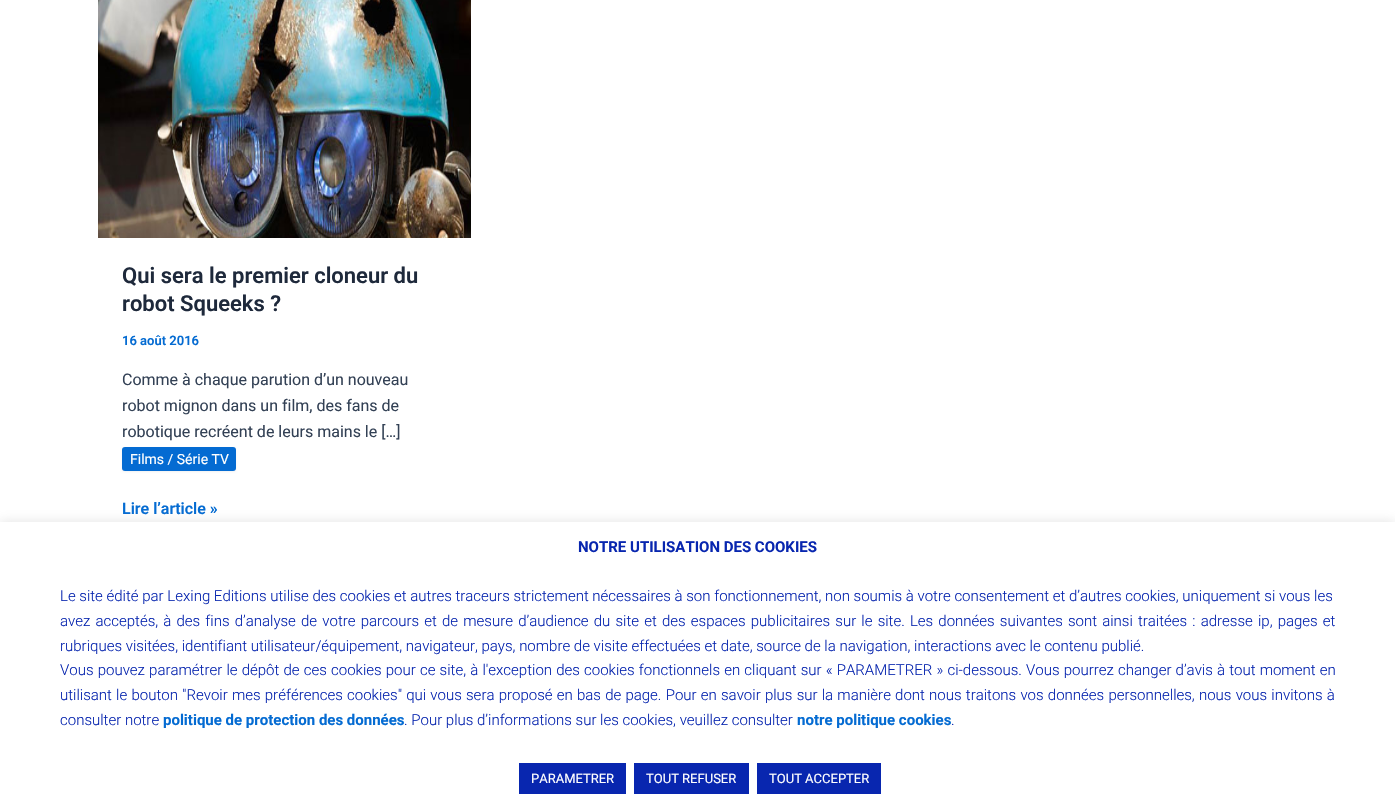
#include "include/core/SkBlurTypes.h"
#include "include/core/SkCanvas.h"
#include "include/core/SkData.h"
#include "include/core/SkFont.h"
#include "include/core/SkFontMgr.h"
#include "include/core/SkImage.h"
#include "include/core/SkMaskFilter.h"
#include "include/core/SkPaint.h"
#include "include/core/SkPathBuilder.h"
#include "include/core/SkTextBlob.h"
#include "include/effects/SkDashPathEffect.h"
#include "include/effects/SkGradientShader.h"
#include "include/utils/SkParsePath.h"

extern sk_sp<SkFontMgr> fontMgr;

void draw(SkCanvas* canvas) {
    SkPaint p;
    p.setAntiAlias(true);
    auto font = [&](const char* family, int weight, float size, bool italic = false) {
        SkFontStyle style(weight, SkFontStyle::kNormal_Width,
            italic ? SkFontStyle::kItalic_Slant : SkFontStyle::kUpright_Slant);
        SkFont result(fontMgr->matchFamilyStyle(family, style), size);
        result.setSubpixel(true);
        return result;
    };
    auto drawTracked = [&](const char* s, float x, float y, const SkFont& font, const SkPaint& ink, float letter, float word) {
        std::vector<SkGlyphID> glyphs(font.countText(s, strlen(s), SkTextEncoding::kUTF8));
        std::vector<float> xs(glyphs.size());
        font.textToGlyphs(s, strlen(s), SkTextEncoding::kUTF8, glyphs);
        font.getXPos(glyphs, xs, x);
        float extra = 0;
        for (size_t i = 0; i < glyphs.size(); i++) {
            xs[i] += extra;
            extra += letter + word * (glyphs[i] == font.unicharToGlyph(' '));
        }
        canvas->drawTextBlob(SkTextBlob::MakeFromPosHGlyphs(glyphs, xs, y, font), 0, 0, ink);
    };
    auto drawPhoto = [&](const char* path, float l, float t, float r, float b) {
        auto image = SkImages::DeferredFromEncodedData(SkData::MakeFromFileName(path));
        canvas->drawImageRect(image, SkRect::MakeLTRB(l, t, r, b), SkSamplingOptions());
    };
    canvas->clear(0xFFFFFFFF);
    drawPhoto("media/1.png", 98, 0, 471, 238);
    auto font1 = font("Roboto", 600, 22);
    p.setColor(0xFF1E293B);
    canvas->drawString("Qui sera le premier cloneur du", 122, 283, font1, p);
    canvas->drawString("robot Squeeks ?", 122, 311, font1, p);
    auto font2 = font("Roboto", 600, 13);
    p.setColor(0xFF046BD2);
    canvas->drawString("16 août 2016", 122, 345, font2, p);
    auto font3 = font("Roboto", 400, 16);
    p.setColor(0xFF334155);
    {
        const struct { const char* s; float x, y; } items[] = {
            {"Comme à chaque parution d’un nouveau", 122, 385},
            {"robot mignon dans un film, des fans de", 122, 411},
            {"robotique recréent de leurs mains le […]", 122, 437},
        };
        for (auto [s, x, y] : items) {
            canvas->drawString(s, x, y, font3, p);
        }
    }
    p.setColor(0x0D000000);
    p.setMaskFilter(SkMaskFilter::MakeBlur(kNormal_SkBlurStyle, 1));
    canvas->drawRoundRect(SkRect::MakeLTRB(122, 448, 236, 472), 3, 3, p);
    p.setMaskFilter(nullptr);
    p.setColor(0xFF046BD2);
    canvas->drawRoundRect(SkRect::MakeLTRB(122, 447, 236, 471), 3, 3, p);
    auto font4 = font("Roboto", 400, 14);
    p.setColor(0xFFFFFFFF);
    canvas->drawString("Films / Série TV", 130, 464, font4, p);
    auto font5 = font("Roboto", 600, 16);
    p.setColor(0xFF046BD2);
    canvas->drawString("Lire l’article »", 122, 514, font5, p);
    p.setColor(0x4DACABAB);
    p.setMaskFilter(SkMaskFilter::MakeBlur(kNormal_SkBlurStyle, 5));
    canvas->drawRect(SkRect::MakeLTRB(0, 521, 1395, 805), p);
    p.setMaskFilter(nullptr);
    p.setColor(0xFFFFFFFF);
    canvas->drawRect(SkRect::MakeLTRB(0, 522, 1395, 806), p);
    auto font6 = font("Roboto", 700, 15);
    p.setColor(0xFF0826AF);
    canvas->drawString("NOTRE UTILISATION DES COOKIES", 578, 552, font6, p);
    auto font7 = font("Roboto", 300, 15);
    canvas->drawString("Le site édité par Lexing Editions utilise des cookies et autres traceurs strictement nécessaires à son fonctionnement, non soumis à votre consentement et d’autres cookies, uniquement si vous les", 60, 601, font7, p);
    drawTracked("avez acceptés, à des fins d’analyse de votre parcours et de mesure d’audience du site et des espaces publicitaires sur le site. Les données suivantes sont ainsi traitées : adresse ip, pages et", 60, 626, font7, p, 0, 1.5f);
    canvas->drawString("rubriques visitées, identifiant utilisateur/équipement, navigateur, pays, nombre de visite effectuées et date, source de la navigation, interactions avec le contenu publié.", 60, 651, font7, p);
    drawTracked("Vous pouvez paramétrer le dépôt de ces cookies pour ce site, à l'exception des cookies fonctionnels en cliquant sur « PARAMETRER » ci-dessous. Vous pourrez changer d’avis à tout moment en", 60, 675, font7, p, 0, 0.5f);
    drawTracked("utilisant le bouton \"Revoir mes préférences cookies\" qui vous sera proposé en bas de page. Pour en savoir plus sur la manière dont nous traitons vos données personnelles, nous vous invitons à", 60, 700, font7, p, 0, 0.55f);
    canvas->drawString("consulter notre", 60, 725, font7, p);
    p.setColor(0xFF046BD2);
    canvas->drawString("politique de protection des données", 163, 725, font6, p);
    p.setColor(0xFF0826AF);
    canvas->drawString(". Pour plus d’informations sur les cookies, veuillez consulter", 404, 725, font7, p);
    p.setColor(0xFF046BD2);
    canvas->drawString("notre politique cookies", 797, 725, font6, p);
    p.setColor(0xFF0826AF);
    canvas->drawString(".", 951, 725, font7, p);
    canvas->drawRect(SkRect::MakeLTRB(519, 763, 626, 794), p);
    auto font8 = font("Roboto", 400, 13);
    p.setColor(0xFFFFFFFF);
    canvas->drawString("PARAMETRER", 531, 783, font8, p);
    p.setColor(0xFF0826AF);
    canvas->drawRect(SkRect::MakeLTRB(634, 763, 749, 794), p);
    p.setColor(0xFFFFFFFF);
    canvas->drawString("TOUT REFUSER", 646, 783, font8, p);
    p.setColor(0xFF0826AF);
    canvas->drawRect(SkRect::MakeLTRB(757, 763, 881, 794), p);
    p.setColor(0xFFFFFFFF);
    canvas->drawString("TOUT ACCEPTER", 769, 783, font8, p);
}
